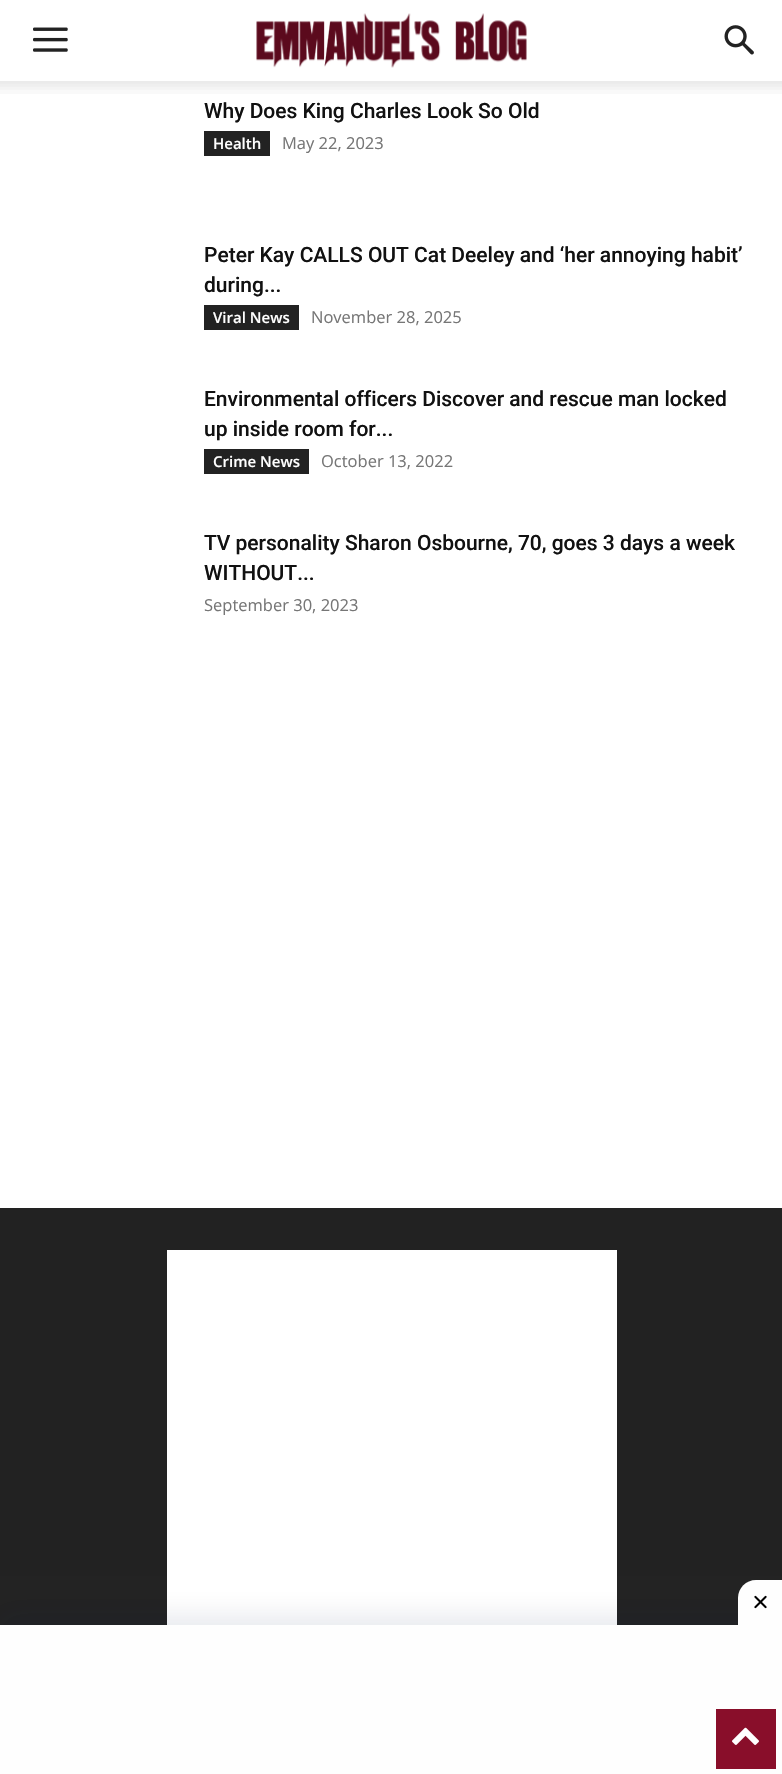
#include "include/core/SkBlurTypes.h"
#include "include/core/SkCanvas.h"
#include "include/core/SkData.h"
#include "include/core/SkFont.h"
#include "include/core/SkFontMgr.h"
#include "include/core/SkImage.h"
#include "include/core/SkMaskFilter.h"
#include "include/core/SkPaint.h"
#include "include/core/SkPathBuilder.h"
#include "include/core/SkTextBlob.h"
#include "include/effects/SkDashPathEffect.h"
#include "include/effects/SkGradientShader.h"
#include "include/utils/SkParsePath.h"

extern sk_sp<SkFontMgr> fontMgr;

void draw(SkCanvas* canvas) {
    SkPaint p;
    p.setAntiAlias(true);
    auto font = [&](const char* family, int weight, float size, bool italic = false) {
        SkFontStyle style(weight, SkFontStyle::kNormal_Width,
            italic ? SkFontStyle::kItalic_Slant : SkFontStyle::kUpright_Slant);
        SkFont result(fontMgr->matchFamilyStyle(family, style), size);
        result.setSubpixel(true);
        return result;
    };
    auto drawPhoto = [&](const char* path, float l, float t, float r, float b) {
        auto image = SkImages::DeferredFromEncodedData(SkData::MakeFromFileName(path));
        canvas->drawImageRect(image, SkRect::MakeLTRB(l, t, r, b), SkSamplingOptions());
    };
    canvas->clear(0xFFFFFFFF);
    drawPhoto("media/1.png", 33, 27, 68, 52);
    drawPhoto("media/2.png", 256, 13, 527, 68);
    drawPhoto("media/3.png", 724, 25, 754, 55);
    drawPhoto("media/4.png", 0, 81, 782, 94);
    auto font1 = font("Roboto", 500, 21);
    p.setColor(0xFF111111);
    canvas->drawString("Why Does King Charles Look So Old", 204, 118, font1, p);
    p.setColor(0xFF222222);
    canvas->drawRect(SkRect::MakeLTRB(204, 131, 270, 156), p);
    auto font2 = font("Open Sans", 600, 15);
    p.setColor(0xFFFFFFFF);
    canvas->drawString("Health", 213, 149, font2, p);
    auto font3 = font("Open Sans", 400, 16.5f);
    p.setColor(0xFF767676);
    canvas->drawString("May 22, 2023", 282, 149, font3, p);
    p.setColor(0xFF111111);
    canvas->drawString("Peter Kay CALLS OUT Cat Deeley and ‘her annoying habit’", 204, 262, font1, p);
    canvas->drawString("during...", 204, 292, font1, p);
    p.setColor(0xFF222222);
    canvas->drawRect(SkRect::MakeLTRB(204, 305, 299, 330), p);
    p.setColor(0xFFFFFFFF);
    canvas->drawString("Viral News", 213, 323, font2, p);
    p.setColor(0xFF767676);
    canvas->drawString("November 28, 2025", 311, 323, font3, p);
    p.setColor(0xFF111111);
    canvas->drawString("Environmental officers Discover and rescue man locked", 204, 406, font1, p);
    canvas->drawString("up inside room for...", 204, 436, font1, p);
    p.setColor(0xFF222222);
    canvas->drawRect(SkRect::MakeLTRB(204, 449, 309, 474), p);
    p.setColor(0xFFFFFFFF);
    canvas->drawString("Crime News", 213, 467, font2, p);
    p.setColor(0xFF767676);
    canvas->drawString("October 13, 2022", 321, 467, font3, p);
    p.setColor(0xFF111111);
    canvas->drawString("TV personality Sharon Osbourne, 70, goes 3 days a week", 204, 550, font1, p);
    canvas->drawString("WITHOUT...", 204, 580, font1, p);
    p.setColor(0xFF767676);
    canvas->drawString("September 30, 2023", 204, 611, font3, p);
    p.setColor(0xFF222222);
    canvas->drawRect(SkRect::MakeLTRB(0, 1208, 782, 1625), p);
    p.setColor(0xFFFFFFFF);
    canvas->drawRect(SkRect::MakeLTRB(167, 1250, 617, 1625), p);
    p.setColor(0x1A09204C);
    p.setMaskFilter(SkMaskFilter::MakeBlur(kNormal_SkBlurStyle, 13.5f));
    canvas->drawRect(SkRect::MakeLTRB(0, 1616, 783, 1766), p);
    p.setMaskFilter(nullptr);
    p.setColor(0xFFFEFEFE);
    canvas->drawRect(SkRect::MakeLTRB(0, 1625, 782, 1774), p);
    canvas->drawPath(SkPathBuilder().moveTo(756, 1580).lineTo(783, 1580).lineTo(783, 1625).lineTo(738, 1625).lineTo(738, 1598).cubicTo(738, 1588, 746, 1580, 756, 1580).close().detach(), p);
    drawPhoto("media/5.png", 754, 1595, 767, 1609);
    p.setColor(0xFF890E2A);
    canvas->drawRect(SkRect::MakeLTRB(716, 1709, 776, 1769), p);
    drawPhoto("media/6.png", 732, 1727, 759, 1745);
}
